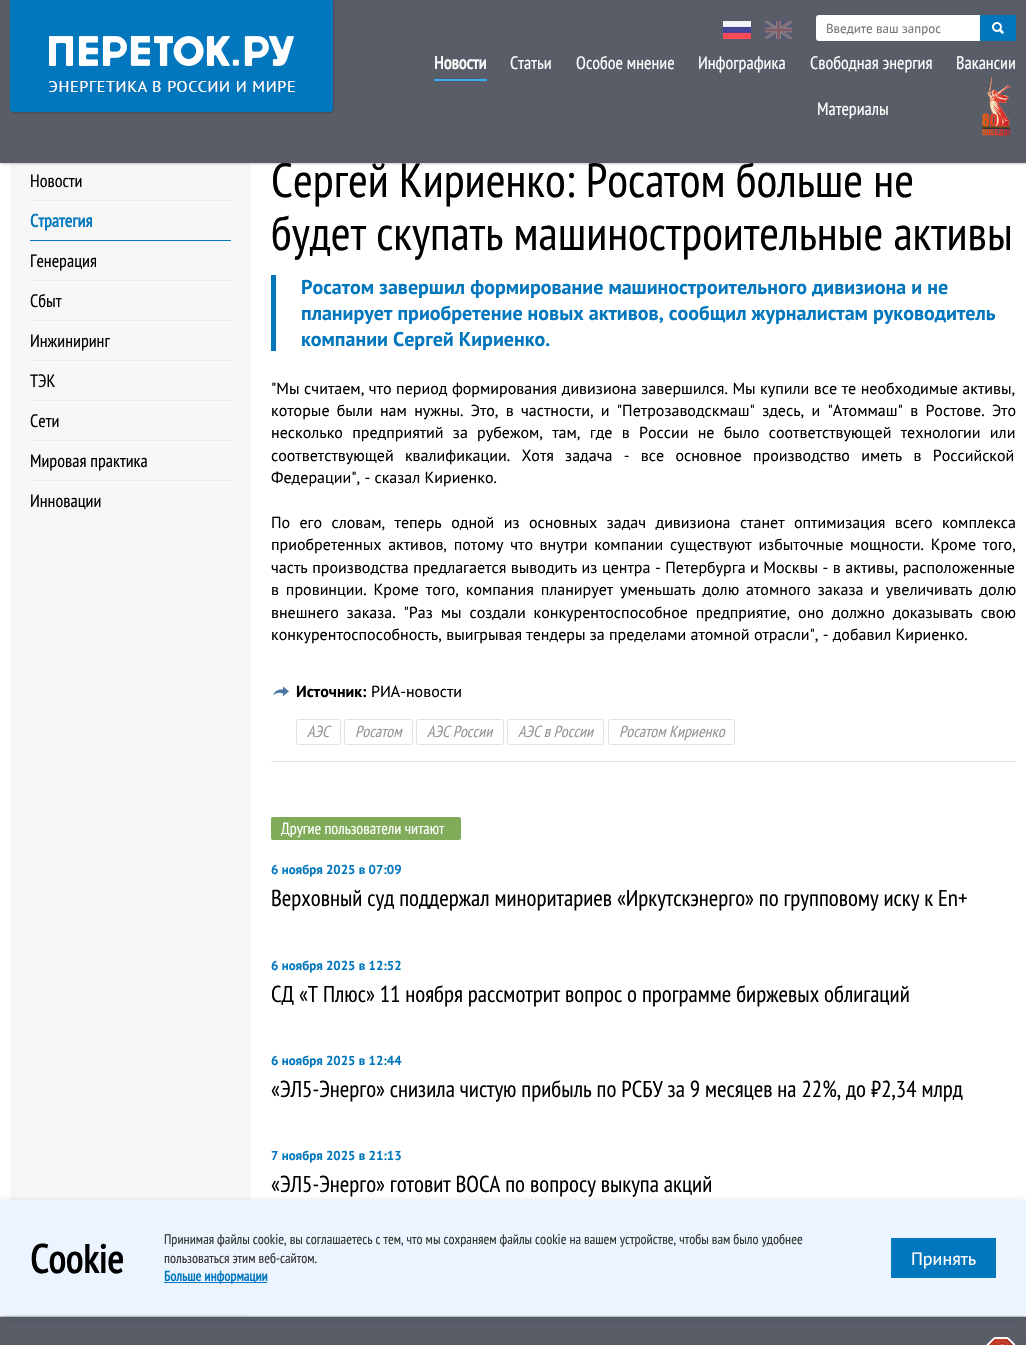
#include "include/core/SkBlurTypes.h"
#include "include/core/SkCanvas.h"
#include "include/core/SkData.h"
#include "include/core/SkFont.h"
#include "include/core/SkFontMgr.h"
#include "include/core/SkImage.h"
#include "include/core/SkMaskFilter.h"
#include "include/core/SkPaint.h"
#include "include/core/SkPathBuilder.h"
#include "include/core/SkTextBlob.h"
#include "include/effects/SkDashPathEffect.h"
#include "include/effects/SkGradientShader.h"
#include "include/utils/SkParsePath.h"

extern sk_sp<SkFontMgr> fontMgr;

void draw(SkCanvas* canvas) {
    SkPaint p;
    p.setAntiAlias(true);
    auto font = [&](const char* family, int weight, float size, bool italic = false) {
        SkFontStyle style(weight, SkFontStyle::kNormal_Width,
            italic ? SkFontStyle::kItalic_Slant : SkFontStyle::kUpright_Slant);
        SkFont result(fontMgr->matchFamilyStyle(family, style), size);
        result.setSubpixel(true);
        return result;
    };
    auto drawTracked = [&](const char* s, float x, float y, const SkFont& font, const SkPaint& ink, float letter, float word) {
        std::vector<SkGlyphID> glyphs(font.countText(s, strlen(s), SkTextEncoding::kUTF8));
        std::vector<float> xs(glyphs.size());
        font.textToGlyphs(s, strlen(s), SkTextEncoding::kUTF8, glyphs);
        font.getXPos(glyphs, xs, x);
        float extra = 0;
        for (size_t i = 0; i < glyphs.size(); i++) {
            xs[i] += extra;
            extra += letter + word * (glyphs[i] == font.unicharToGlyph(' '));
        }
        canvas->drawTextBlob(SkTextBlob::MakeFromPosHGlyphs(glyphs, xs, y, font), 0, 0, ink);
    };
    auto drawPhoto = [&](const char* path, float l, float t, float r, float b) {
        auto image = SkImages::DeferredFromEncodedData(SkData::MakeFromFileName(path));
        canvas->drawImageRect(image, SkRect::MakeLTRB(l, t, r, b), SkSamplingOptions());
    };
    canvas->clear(0xFFFFFFFF);
    p.setColor(0xFFF7F7F7);
    canvas->drawRect(SkRect::MakeLTRB(10, 163, 251, 1316), p);
    p.setColor(0x33000000);
    p.setMaskFilter(SkMaskFilter::MakeBlur(kNormal_SkBlurStyle, 1));
    canvas->drawRect(SkRect::MakeLTRB(1, 1, 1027, 164), p);
    p.setMaskFilter(nullptr);
    auto font1 = font("PT Sans Narrow", 400, 48);
    p.setColor(0xFF000000);
    canvas->drawString("Сергей Кириенко: Росатом больше не", 271, 197, font1, p);
    p.setColor(0xFF585D67);
    canvas->drawRect(SkRect::MakeLTRB(0, 0, 1026, 163), p);
    p.setColor(0x33000000);
    p.setMaskFilter(SkMaskFilter::MakeBlur(kNormal_SkBlurStyle, 1));
    canvas->drawRoundRect(SkRect::MakeLTRB(11, 1, 334, 113), 3, 3, p);
    p.setMaskFilter(nullptr);
    p.setColor(0xFF0277BD);
    canvas->drawPath(SkPathBuilder().moveTo(10, 0).lineTo(333, 0).lineTo(333, 109).cubicTo(333, 110.5f, 331.5f, 112, 330, 112).lineTo(13, 112).cubicTo(11.5f, 112, 10, 110.5f, 10, 109).close().detach(), p);
    drawPhoto("media/1.png", 49, 36, 295, 92);
    drawPhoto("media/2.png", 723, 21, 751, 39);
    drawPhoto("media/3.png", 765, 21, 792, 39);
    p.setColor(0xFFFFFFFF);
    canvas->drawRoundRect(SkRect::MakeLTRB(816, 15, 1016, 41), 3, 3, p);
    auto font2 = font("PT Sans", 400, 13);
    p.setColor(0xFF757575);
    canvas->drawString("Введите ваш запрос", 826, 33, font2, p);
    p.setColor(0xFF0277BD);
    canvas->drawRect(SkRect::MakeLTRB(980, 15, 1016, 41), p);
    drawPhoto("media/4.png", 992, 22, 1004, 34);
    auto font3 = font("PT Sans Narrow", 700, 18);
    p.setColor(0xFFFFFFFF);
    canvas->drawString("Новости", 434, 69, font3, p);
    p.setColor(0xFF34B0FA);
    canvas->drawRect(SkRect::MakeLTRB(434, 79, 487, 81), p);
    auto font4 = font("PT Sans Narrow", 400, 18);
    p.setColor(0xFFFFFFFF);
    {
        const struct { const char* s; float x, y; } items[] = {
            {"Статьи", 510, 69},
            {"Особое мнение", 576, 69},
            {"Инфографика", 698, 69},
            {"Свободная энергия", 810, 69},
            {"Вакансии", 956, 69},
            {"Материалы", 817, 115},
        };
        for (auto [s, x, y] : items) {
            canvas->drawString(s, x, y, font4, p);
        }
    }
    drawPhoto("media/5.png", 982, 77, 1011, 137);
    p.setColor(0xFFEBEBEB);
    canvas->drawRect(SkRect::MakeLTRB(30, 200, 231, 201), p);
    p.setColor(0xFF000000);
    canvas->drawString("Новости", 30, 187, font4, p);
    p.setColor(0xFF0277BD);
    canvas->drawRect(SkRect::MakeLTRB(30, 240, 231, 241), p);
    canvas->drawString("Стратегия", 30, 227, font3, p);
    p.setColor(0xFFEBEBEB);
    canvas->drawRect(SkRect::MakeLTRB(30, 280, 231, 281), p);
    p.setColor(0xFF000000);
    canvas->drawString("Генерация", 30, 267, font4, p);
    p.setColor(0xFFEBEBEB);
    canvas->drawRect(SkRect::MakeLTRB(30, 320, 231, 321), p);
    p.setColor(0xFF000000);
    canvas->drawString("Сбыт", 30, 307, font4, p);
    p.setColor(0xFFEBEBEB);
    canvas->drawRect(SkRect::MakeLTRB(30, 360, 231, 361), p);
    p.setColor(0xFF000000);
    canvas->drawString("Инжиниринг", 30, 347, font4, p);
    p.setColor(0xFFEBEBEB);
    canvas->drawRect(SkRect::MakeLTRB(30, 400, 231, 401), p);
    p.setColor(0xFF000000);
    canvas->drawString("ТЭК", 30, 387, font4, p);
    p.setColor(0xFFEBEBEB);
    canvas->drawRect(SkRect::MakeLTRB(30, 440, 231, 441), p);
    p.setColor(0xFF000000);
    canvas->drawString("Сети", 30, 427, font4, p);
    p.setColor(0xFFEBEBEB);
    canvas->drawRect(SkRect::MakeLTRB(30, 480, 231, 481), p);
    p.setColor(0xFF000000);
    canvas->drawString("Мировая практика", 30, 467, font4, p);
    canvas->drawString("Инновации", 30, 507, font4, p);
    canvas->drawString("будет скупать машиностроительные активы", 271, 250, font1, p);
    p.setColor(0xFF0277BD);
    canvas->drawRect(SkRect::MakeLTRB(271, 275, 276, 351), p);
    auto font5 = font("PT Sans", 700, 20);
    {
        const struct { const char* s; float x, y; } items[] = {
            {"Росатом завершил формирование машиностроительного дивизиона и не", 301, 294},
            {"планирует приобретение новых активов, сообщил журналистам руководитель", 301, 320},
            {"компании Сергей Кириенко.", 301, 346},
        };
        for (auto [s, x, y] : items) {
            canvas->drawString(s, x, y, font5, p);
        }
    }
    auto font6 = font("PT Sans", 400, 16);
    p.setColor(0xFF000000);
    drawTracked("\"Мы считаем, что период формирования дивизиона завершился. Мы купили все те необходимые активы,", 271, 394, font6, p, 0, 0.25f);
    drawTracked("которые были нам нужны. Это, в частности, и \"Петрозаводскмаш\" здесь, и \"Атоммаш\" в Ростове. Это", 271, 416, font6, p, 0, 3);
    drawTracked("несколько предприятий за рубежом, там, где в России не было соответствующей технологии или", 271, 438, font6, p, 0, 5);
    drawTracked("соответствующей квалификации. Хотя задача - все основное производство иметь в Российской", 271, 461, font6, p, 0, 7);
    canvas->drawString("Федерации\", - сказал Кириенко.", 271, 483, font6, p);
    drawTracked("По его словам, теперь одной из основных задач дивизиона станет оптимизация всего комплекса", 271, 528, font6, p, 0, 5.1f);
    drawTracked("приобретенных активов, потому что внутри компании существуют избыточные мощности. Кроме того,", 271, 550, font6, p, 0, 2.4f);
    drawTracked("часть производства предлагается выводить из центра - Петербурга и Москвы - в активы, расположенные", 271, 573, font6, p, 0, 0.25f);
    drawTracked("в провинции. Кроме того, компания планирует уменьшать долю атомного заказа и увеличивать долю", 271, 595, font6, p, 0, 2.6f);
    drawTracked("внешнего заказа. \"Раз мы создали конкурентоспособное предприятие, оно должно доказывать свою", 271, 618, font6, p, 0, 3.6f);
    canvas->drawString("конкурентоспособность, выигрывая тендеры за пределами атомной отрасли\", - добавил Кириенко.", 271, 640, font6, p);
    p.setColor(0xFFE1E1E1);
    canvas->drawRect(SkRect::MakeLTRB(271, 761, 1016, 762), p);
    drawPhoto("media/6.png", 273, 686, 289, 697);
    auto font7 = font("PT Sans", 700, 16);
    p.setColor(0xFF000000);
    canvas->drawString("Источник:", 296, 697, font7, p);
    canvas->drawString("РИА-новости", 371, 697, font6, p);
    p.setStyle(SkPaint::kStroke_Style);
    p.setStrokeWidth(1);
    p.setColor(0xFFE1E1E1);
    canvas->drawRoundRect(SkRect::MakeLTRB(296.5f, 719.5f, 340.5f, 744.5f), 2.5f, 2.5f, p);
    auto font8 = font("PT Sans Narrow", 400, 16, true);
    p.setStyle(SkPaint::kFill_Style);
    p.setColor(0xFF959595);
    canvas->drawString("АЭС", 307, 737, font8, p);
    p.setStyle(SkPaint::kStroke_Style);
    p.setColor(0xFFE1E1E1);
    canvas->drawRoundRect(SkRect::MakeLTRB(344.5f, 719.5f, 412.5f, 744.5f), 2.5f, 2.5f, p);
    p.setStyle(SkPaint::kFill_Style);
    p.setColor(0xFF959595);
    canvas->drawString("Росатом", 355, 737, font8, p);
    p.setStyle(SkPaint::kStroke_Style);
    p.setColor(0xFFE1E1E1);
    canvas->drawRoundRect(SkRect::MakeLTRB(416.5f, 719.5f, 503.5f, 744.5f), 2.5f, 2.5f, p);
    p.setStyle(SkPaint::kFill_Style);
    p.setColor(0xFF959595);
    canvas->drawString("АЭС России", 427, 737, font8, p);
    p.setStyle(SkPaint::kStroke_Style);
    p.setColor(0xFFE1E1E1);
    canvas->drawRoundRect(SkRect::MakeLTRB(507.5f, 719.5f, 603.5f, 744.5f), 2.5f, 2.5f, p);
    p.setStyle(SkPaint::kFill_Style);
    p.setColor(0xFF959595);
    canvas->drawString("АЭС в России", 518, 737, font8, p);
    p.setStyle(SkPaint::kStroke_Style);
    p.setColor(0xFFE1E1E1);
    canvas->drawRoundRect(SkRect::MakeLTRB(608.5f, 719.5f, 734.5f, 744.5f), 2.5f, 2.5f, p);
    p.setStyle(SkPaint::kFill_Style);
    p.setColor(0xFF959595);
    canvas->drawString("Росатом Кириенко", 619, 737, font8, p);
    p.setColor(0xFF80AC5A);
    canvas->drawRoundRect(SkRect::MakeLTRB(271, 817, 461, 840), 2, 2, p);
    auto font9 = font("PT Sans Narrow", 400, 16);
    p.setColor(0xFFFFFFFF);
    canvas->drawString("Другие пользователи читают", 281, 834, font9, p);
    auto font10 = font("PT Sans", 700, 13);
    p.setColor(0xFF0277BD);
    canvas->drawString("6 ноября 2025 в 07:09", 271, 874, font10, p);
    auto font11 = font("PT Sans Narrow", 400, 23);
    p.setColor(0xFF000000);
    canvas->drawString("Верховный суд поддержал миноритариев «Иркутскэнерго» по групповому иску к En+", 271, 906, font11, p);
    p.setColor(0xFF0277BD);
    canvas->drawString("6 ноября 2025 в 12:52", 271, 970, font10, p);
    p.setColor(0xFF000000);
    canvas->drawString("СД «Т Плюс» 11 ноября рассмотрит вопрос о программе биржевых облигаций", 271, 1002, font11, p);
    p.setColor(0xFF0277BD);
    canvas->drawString("6 ноября 2025 в 12:44", 271, 1065, font10, p);
    p.setColor(0xFF000000);
    canvas->drawString("«ЭЛ5-Энерго» снизила чистую прибыль по РСБУ за 9 месяцев на 22%, до ₽2,34 млрд", 271, 1097, font11, p);
    p.setColor(0xFF0277BD);
    canvas->drawString("7 ноября 2025 в 21:13", 271, 1160, font10, p);
    p.setColor(0xFF000000);
    canvas->drawString("«ЭЛ5-Энерго» готовит ВОСА по вопросу выкупа акций", 271, 1192, font11, p);
    p.setColor(0xFF585D67);
    canvas->drawRect(SkRect::MakeLTRB(0, 1317, 1026, 1345), p);
    p.setColor(0xFFCCCCCC);
    canvas->drawRect(SkRect::MakeLTRB(0, 1316, 1026, 1317), p);
    drawPhoto("media/7.png", 986, 1337, 1016, 1345);
    p.setColor(0x33223C50);
    p.setMaskFilter(SkMaskFilter::MakeBlur(kNormal_SkBlurStyle, 4));
    canvas->drawRect(SkRect::MakeLTRB(0, 1202, 1026, 1317), p);
    p.setMaskFilter(nullptr);
    p.setColor(0xFFEBF4FF);
    canvas->drawRect(SkRect::MakeLTRB(0, 1200, 1026, 1315), p);
    auto font12 = font("PT Sans Narrow", 700, 40);
    p.setColor(0xFF000000);
    canvas->drawString("Cookie", 30, 1273, font12, p);
    auto font13 = font("PT Sans Narrow", 400, 14);
    p.setColor(0xFF333333);
    canvas->drawString("Принимая файлы cookie, вы соглашаетесь с тем, что мы сохраняем файлы cookie на вашем устройстве, чтобы вам было удобнее", 164, 1244, font13, p);
    canvas->drawString("пользоваться этим веб-сайтом.", 164, 1263, font13, p);
    p.setColor(0xFF0277BD);
    canvas->drawRect(SkRect::MakeLTRB(164, 1282, 267, 1283), p);
    auto font14 = font("PT Sans Narrow", 700, 14);
    canvas->drawString("Больше информации", 164, 1281, font14, p);
    canvas->drawRect(SkRect::MakeLTRB(891, 1238, 996, 1278), p);
    auto font15 = font("PT Sans", 400, 18);
    p.setColor(0xFFFFFFFF);
    canvas->drawString("Принять", 911, 1265, font15, p);
}
